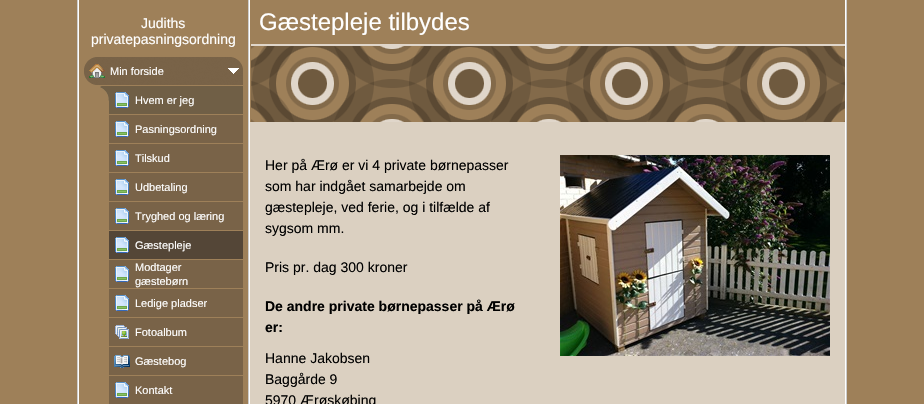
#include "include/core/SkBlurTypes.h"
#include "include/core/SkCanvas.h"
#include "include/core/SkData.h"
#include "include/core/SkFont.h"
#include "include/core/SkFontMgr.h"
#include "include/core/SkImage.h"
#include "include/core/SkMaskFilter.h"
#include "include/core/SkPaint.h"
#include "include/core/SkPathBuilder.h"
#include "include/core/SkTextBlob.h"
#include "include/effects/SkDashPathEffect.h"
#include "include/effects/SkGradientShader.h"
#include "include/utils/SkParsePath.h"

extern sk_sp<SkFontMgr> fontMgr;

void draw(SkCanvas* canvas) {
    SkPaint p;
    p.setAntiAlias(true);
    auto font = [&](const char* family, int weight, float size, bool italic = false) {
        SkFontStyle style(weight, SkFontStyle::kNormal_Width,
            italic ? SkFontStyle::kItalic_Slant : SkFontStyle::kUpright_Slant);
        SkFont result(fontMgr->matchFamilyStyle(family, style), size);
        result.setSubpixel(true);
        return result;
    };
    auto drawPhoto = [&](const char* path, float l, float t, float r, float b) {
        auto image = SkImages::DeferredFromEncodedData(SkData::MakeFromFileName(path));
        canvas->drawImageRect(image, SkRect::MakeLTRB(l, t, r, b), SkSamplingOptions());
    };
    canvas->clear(0xFF9E8059);
    {
        const struct { float l, t, r, b; SkColor color; } items[] = {
            {78, 0, 846, 404, 0xFFFFFFFF},
            {77, 0, 78, 404, 0xFFCCCCCC},
            {79, 0, 248, 404, 0xFF9E8059},
        };
        for (auto [l, t, r, b, color] : items) {
            p.setColor(color);
            canvas->drawRect(SkRect::MakeLTRB(l, t, r, b), p);
        }
    }
    auto font1 = font("Liberation Sans", 400, 14);
    p.setColor(0xFFFFFFFF);
    canvas->drawString("Judiths", 141, 28, font1, p);
    canvas->drawString("privatepasningsordning", 91, 44, font1, p);
    drawPhoto("media/1.png", 84, 57, 243, 85);
    drawPhoto("media/2.png", 89, 64, 105, 78);
    drawPhoto("media/3.png", 228, 68, 239, 74);
    auto font2 = font("Liberation Sans", 400, 11);
    canvas->drawString("Min forside", 110, 75, font2, p);
    drawPhoto("media/4.png", 100, 86, 243, 114);
    drawPhoto("media/5.png", 115, 92, 129, 108);
    canvas->drawString("Hvem er jeg", 135, 104, font2, p);
    p.setColor(0xFF796348);
    canvas->drawRect(SkRect::MakeLTRB(109, 115, 243, 143), p);
    drawPhoto("media/6.png", 115, 121, 129, 137);
    p.setColor(0xFFFFFFFF);
    canvas->drawString("Pasningsordning", 135, 133, font2, p);
    p.setColor(0xFF796348);
    canvas->drawRect(SkRect::MakeLTRB(109, 144, 243, 172), p);
    drawPhoto("media/6.png", 115, 150, 129, 166);
    p.setColor(0xFFFFFFFF);
    canvas->drawString("Tilskud", 135, 162, font2, p);
    p.setColor(0xFF796348);
    canvas->drawRect(SkRect::MakeLTRB(109, 173, 243, 201), p);
    drawPhoto("media/6.png", 115, 179, 129, 195);
    p.setColor(0xFFFFFFFF);
    canvas->drawString("Udbetaling", 135, 191, font2, p);
    p.setColor(0xFF796348);
    canvas->drawRect(SkRect::MakeLTRB(109, 202, 243, 230), p);
    drawPhoto("media/6.png", 115, 208, 129, 224);
    p.setColor(0xFFFFFFFF);
    canvas->drawString("Tryghed og læring", 135, 220, font2, p);
    p.setColor(0xFF544637);
    canvas->drawRect(SkRect::MakeLTRB(109, 231, 243, 259), p);
    drawPhoto("media/7.png", 115, 237, 129, 253);
    p.setColor(0xFFFFFFFF);
    canvas->drawString("Gæstepleje", 135, 249, font2, p);
    p.setColor(0xFF796348);
    canvas->drawRect(SkRect::MakeLTRB(109, 260, 243, 288), p);
    drawPhoto("media/6.png", 115, 266, 129, 282);
    p.setColor(0xFFFFFFFF);
    canvas->drawString("Modtager", 135, 271, font2, p);
    canvas->drawString("gæstebørn", 135, 285, font2, p);
    p.setColor(0xFF796348);
    canvas->drawRect(SkRect::MakeLTRB(109, 289, 243, 317), p);
    drawPhoto("media/6.png", 115, 295, 129, 311);
    p.setColor(0xFFFFFFFF);
    canvas->drawString("Ledige pladser", 135, 307, font2, p);
    p.setColor(0xFF796348);
    canvas->drawRect(SkRect::MakeLTRB(109, 318, 243, 346), p);
    drawPhoto("media/8.png", 115, 325, 129, 339);
    p.setColor(0xFFFFFFFF);
    canvas->drawString("Fotoalbum", 135, 336, font2, p);
    p.setColor(0xFF796348);
    canvas->drawRect(SkRect::MakeLTRB(109, 347, 243, 375), p);
    drawPhoto("media/9.png", 114, 355, 130, 368);
    p.setColor(0xFFFFFFFF);
    canvas->drawString("Gæstebog", 135, 365, font2, p);
    p.setColor(0xFF796348);
    canvas->drawRect(SkRect::MakeLTRB(109, 376, 243, 404), p);
    drawPhoto("media/6.png", 115, 382, 129, 398);
    p.setColor(0xFFFFFFFF);
    canvas->drawString("Kontakt", 135, 394, font2, p);
    {
        const struct { float l, t, r, b; SkColor color; } items[] = {
            {248, 0, 249, 404, 0xFFCCCCCC},
            {250, 122, 845, 404, 0xFFDBD0C1},
            {250, 0, 845, 122, 0xFF9E8059},
        };
        for (auto [l, t, r, b, color] : items) {
            p.setColor(color);
            canvas->drawRect(SkRect::MakeLTRB(l, t, r, b), p);
        }
    }
    auto font3 = font("Liberation Sans", 400, 24);
    p.setColor(0xFFFFFFFF);
    canvas->drawString("Gæstepleje tilbydes", 259, 30, font3, p);
    drawPhoto("media/10.png", 251, 44, 845, 122);
    p.setColor(0xFF000000);
    {
        const struct { const char* s; float x, y; } items[] = {
            {"Her på Ærø er vi 4 private børnepasser", 265, 170},
            {"som har indgået samarbejde om", 265, 191},
            {"gæstepleje, ved ferie, og i tilfælde af", 265, 212},
            {"sygsom mm.", 265, 233},
            {"Pris pr. dag 300 kroner", 265, 272},
        };
        for (auto [s, x, y] : items) {
            canvas->drawString(s, x, y, font1, p);
        }
    }
    auto font4 = font("Liberation Sans", 700, 14);
    canvas->drawString("De andre private børnepasser på Ærø", 265, 311, font4, p);
    canvas->drawString("er:", 265, 332, font4, p);
    drawPhoto("media/11.png", 560, 155, 830, 356);
    {
        const struct { const char* s; float x, y; } items[] = {
            {"Hanne Jakobsen", 265, 363},
            {"Baggårde 9", 265, 384},
            {"5970 Ærøskøbing", 265, 405},
        };
        for (auto [s, x, y] : items) {
            canvas->drawString(s, x, y, font1, p);
        }
    }
    p.setColor(0xFFCCCCCC);
    canvas->drawRect(SkRect::MakeLTRB(846, 0, 847, 404), p);
}
